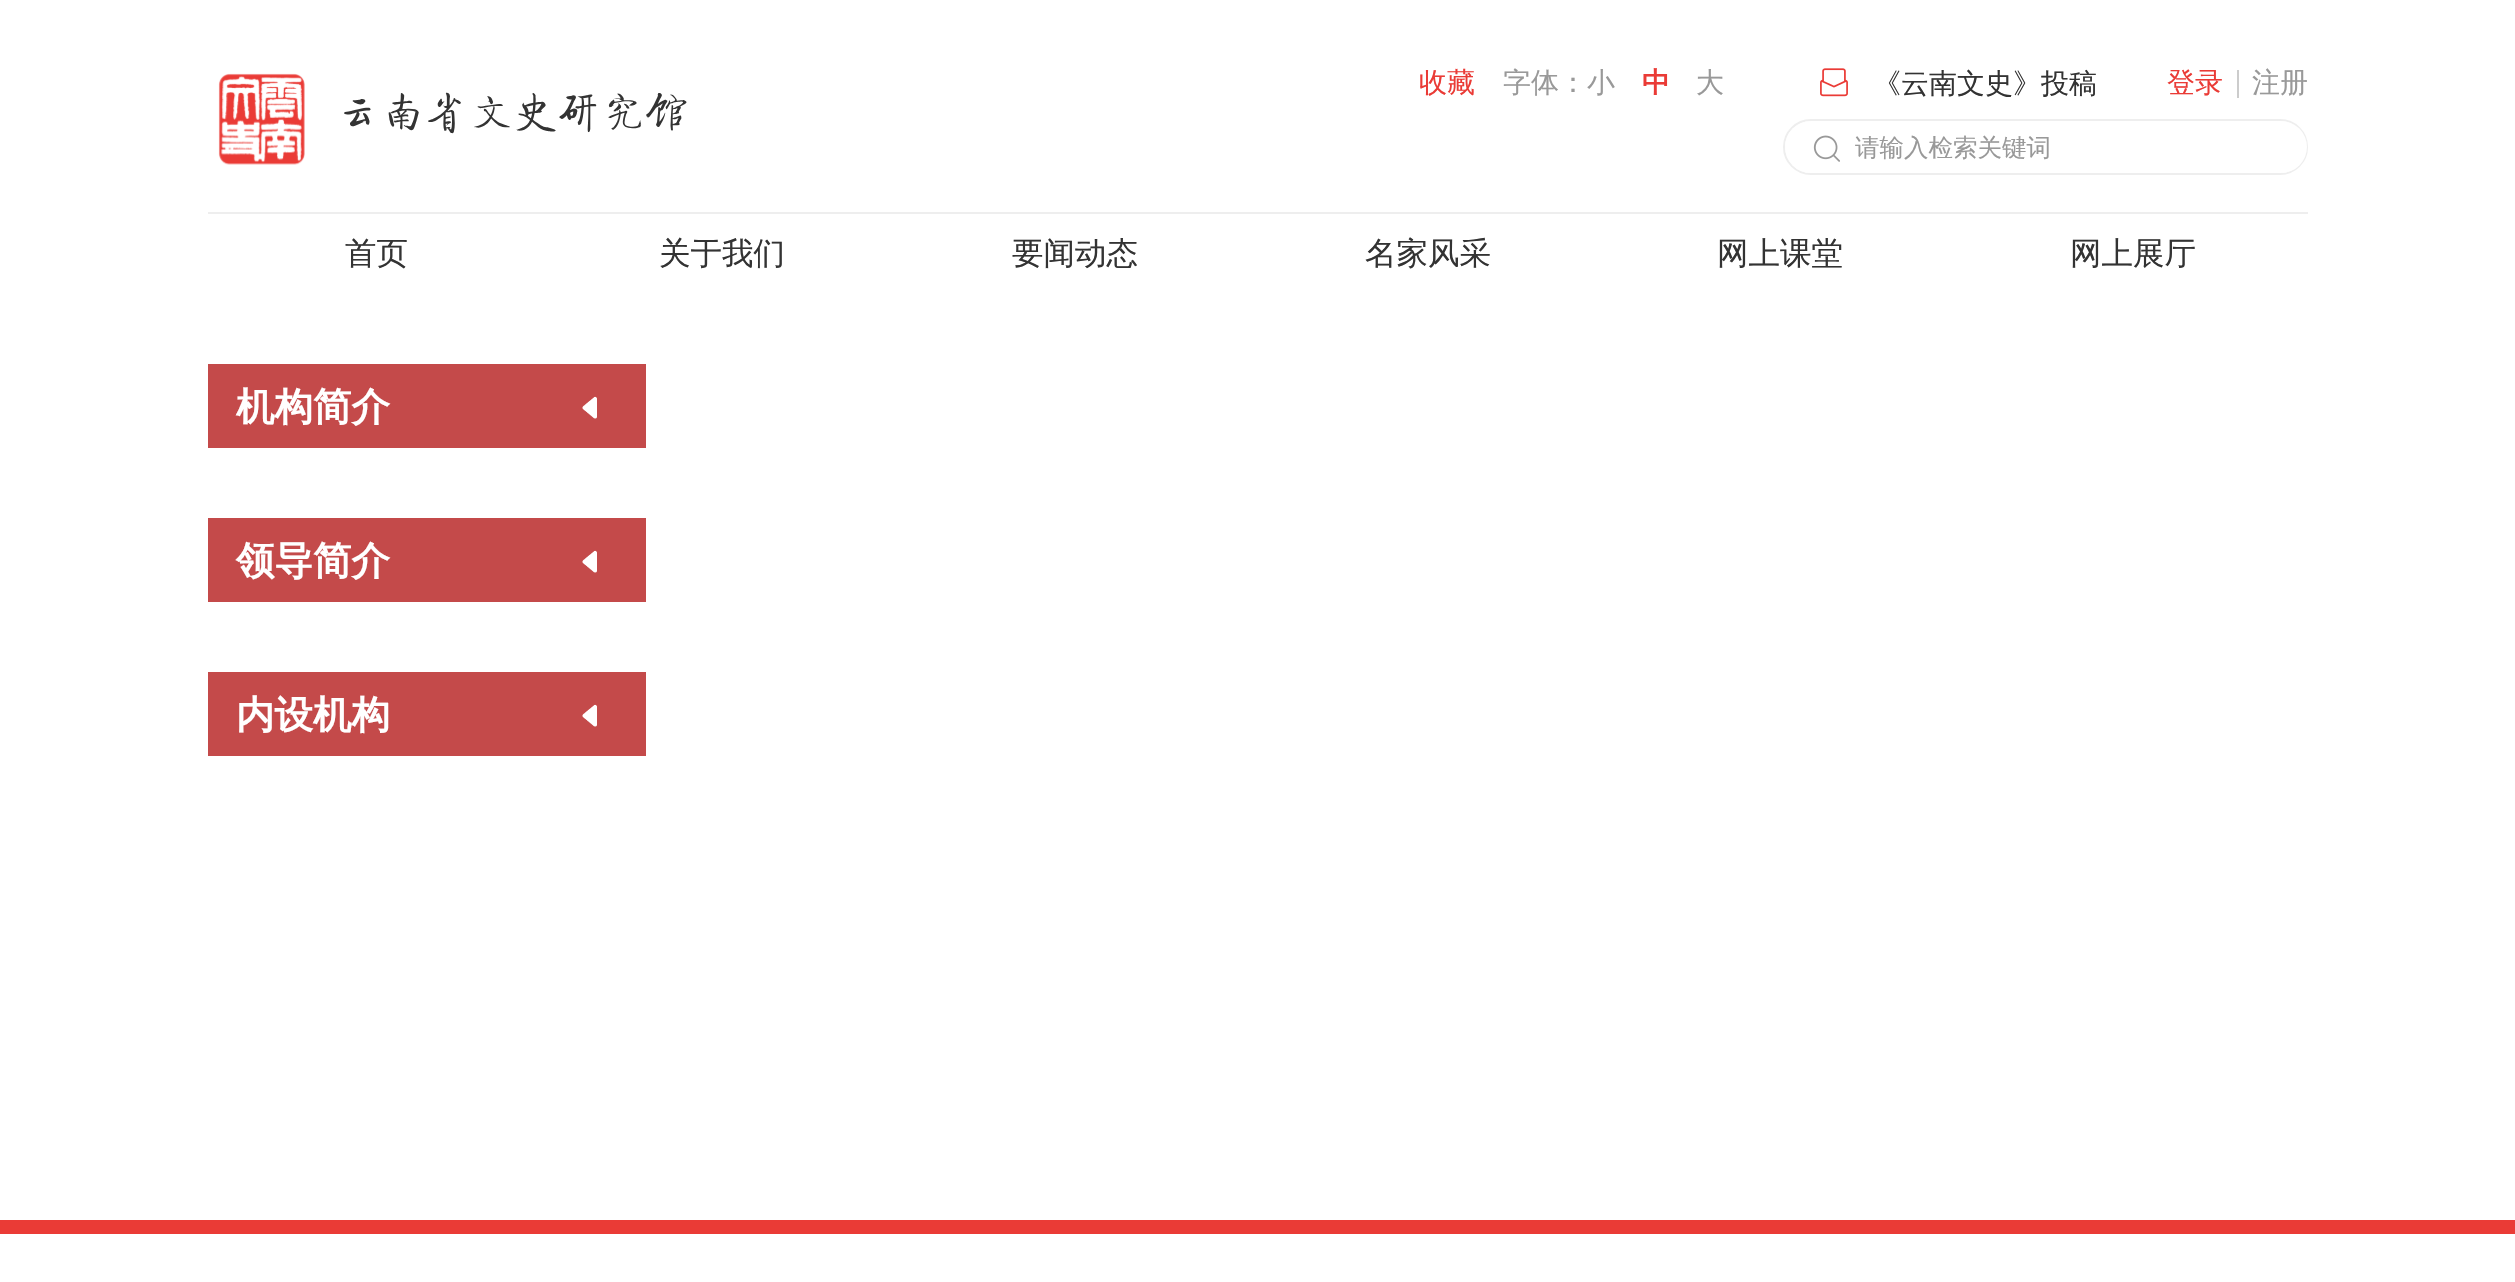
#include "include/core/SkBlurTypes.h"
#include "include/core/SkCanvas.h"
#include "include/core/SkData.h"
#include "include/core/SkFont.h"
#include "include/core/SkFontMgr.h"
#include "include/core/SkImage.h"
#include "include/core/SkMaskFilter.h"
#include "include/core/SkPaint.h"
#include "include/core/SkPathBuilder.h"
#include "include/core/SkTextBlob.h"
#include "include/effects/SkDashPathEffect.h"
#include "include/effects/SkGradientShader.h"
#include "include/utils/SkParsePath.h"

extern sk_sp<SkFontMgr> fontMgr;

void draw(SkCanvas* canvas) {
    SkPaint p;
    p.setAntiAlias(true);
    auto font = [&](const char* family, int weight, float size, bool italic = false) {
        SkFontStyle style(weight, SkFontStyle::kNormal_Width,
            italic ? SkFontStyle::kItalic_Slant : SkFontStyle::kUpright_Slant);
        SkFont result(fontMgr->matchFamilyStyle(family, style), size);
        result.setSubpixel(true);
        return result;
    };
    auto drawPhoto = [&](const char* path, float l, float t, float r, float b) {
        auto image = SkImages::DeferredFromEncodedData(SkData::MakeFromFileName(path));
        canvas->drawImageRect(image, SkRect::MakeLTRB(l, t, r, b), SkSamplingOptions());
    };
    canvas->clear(0xFFFFFFFF);
    p.setColor(0xFFEEEEEE);
    canvas->drawRect(SkRect::MakeLTRB(208, 212, 2308, 214), p);
    drawPhoto("media/1.png", 218, 73, 687, 165);
    auto font1 = font("WenQuanYi Zen Hei", 500, 28);
    p.setColor(0xFFEA3B36);
    canvas->drawString("收藏", 1419, 92, font1, p);
    p.setColor(0xFF999999);
    canvas->drawString("字体：小", 1503, 92, font1, p);
    auto font2 = font("WenQuanYi Zen Hei", 700, 28);
    p.setColor(0xFFEA3B36);
    canvas->drawString("中", 1642, 92, font2, p);
    p.setColor(0xFF999999);
    canvas->drawString("大", 1696, 92, font1, p);
    drawPhoto("media/2.png", 1820, 68, 1848, 97);
    p.setColor(0xFF333333);
    canvas->drawString("《云南文史》投稿", 1873, 93, font1, p);
    p.setColor(0xFFEA3B36);
    canvas->drawString("登录", 2167, 92, font1, p);
    p.setColor(0xFFCCCCCC);
    canvas->drawRect(SkRect::MakeLTRB(2237, 70, 2239, 98), p);
    p.setColor(0xFF999999);
    canvas->drawString("注册", 2252, 92, font1, p);
    p.setStyle(SkPaint::kStroke_Style);
    p.setStrokeWidth(2);
    p.setColor(0xFFEEEEEE);
    canvas->drawRoundRect(SkRect::MakeLTRB(1784, 120, 2307, 174), 27, 27, p);
    p.setStyle(SkPaint::kFill_Style);
    p.setColor(0xFFFFFFFF);
    canvas->drawRoundRect(SkRect::MakeLTRB(1785, 121, 2307, 173), 26, 26, p);
    drawPhoto("media/3.png", 1813, 135, 1840, 162);
    auto font3 = font("WenQuanYi Zen Hei", 500, 24.5f);
    p.setColor(0xFF999999);
    canvas->drawString("请输入检索关键词", 1855, 156, font3, p);
    auto font4 = font("WenQuanYi Zen Hei", 500, 31.5f);
    p.setColor(0xFF333333);
    {
        const struct { const char* s; float x, y; } items[] = {
            {"首页", 345, 264},
            {"关于我们", 659, 264},
            {"要闻动态", 1012, 264},
            {"名家风采", 1365, 264},
            {"网上课堂", 1717, 264},
            {"网上展厅", 2070, 264},
        };
        for (auto [s, x, y] : items) {
            canvas->drawString(s, x, y, font4, p);
        }
    }
    p.setColor(0xFFC44A4A);
    canvas->drawRect(SkRect::MakeLTRB(208, 364, 646, 448), p);
    auto font5 = font("WenQuanYi Zen Hei", 700, 38.5f);
    p.setColor(0xFFFFFFFF);
    canvas->drawString("机构简介", 236, 420, font5, p);
    drawPhoto("media/4.png", 582, 396, 597, 419);
    p.setColor(0xFFC44A4A);
    canvas->drawRect(SkRect::MakeLTRB(208, 518, 646, 602), p);
    p.setColor(0xFFFFFFFF);
    canvas->drawString("领导简介", 236, 574, font5, p);
    drawPhoto("media/4.png", 582, 550, 597, 573);
    p.setColor(0xFFC44A4A);
    canvas->drawRect(SkRect::MakeLTRB(208, 672, 646, 756), p);
    p.setColor(0xFFFFFFFF);
    canvas->drawString("内设机构", 236, 728, font5, p);
    drawPhoto("media/5.png", 582, 704, 597, 727);
    p.setColor(0xFFEA3B36);
    canvas->drawRect(SkRect::MakeLTRB(0, 1220, 2515, 1234), p);
}
